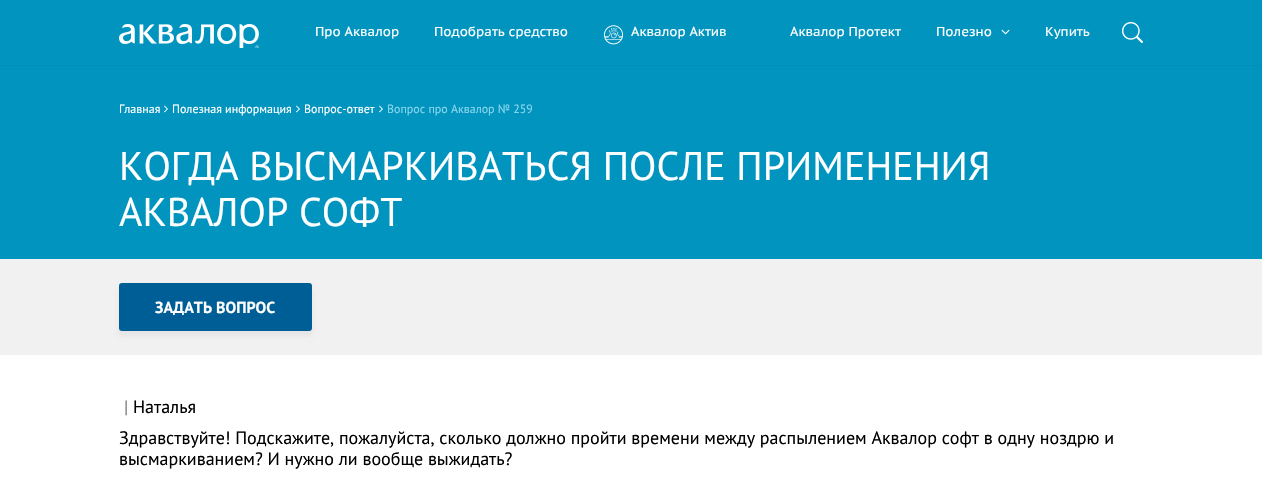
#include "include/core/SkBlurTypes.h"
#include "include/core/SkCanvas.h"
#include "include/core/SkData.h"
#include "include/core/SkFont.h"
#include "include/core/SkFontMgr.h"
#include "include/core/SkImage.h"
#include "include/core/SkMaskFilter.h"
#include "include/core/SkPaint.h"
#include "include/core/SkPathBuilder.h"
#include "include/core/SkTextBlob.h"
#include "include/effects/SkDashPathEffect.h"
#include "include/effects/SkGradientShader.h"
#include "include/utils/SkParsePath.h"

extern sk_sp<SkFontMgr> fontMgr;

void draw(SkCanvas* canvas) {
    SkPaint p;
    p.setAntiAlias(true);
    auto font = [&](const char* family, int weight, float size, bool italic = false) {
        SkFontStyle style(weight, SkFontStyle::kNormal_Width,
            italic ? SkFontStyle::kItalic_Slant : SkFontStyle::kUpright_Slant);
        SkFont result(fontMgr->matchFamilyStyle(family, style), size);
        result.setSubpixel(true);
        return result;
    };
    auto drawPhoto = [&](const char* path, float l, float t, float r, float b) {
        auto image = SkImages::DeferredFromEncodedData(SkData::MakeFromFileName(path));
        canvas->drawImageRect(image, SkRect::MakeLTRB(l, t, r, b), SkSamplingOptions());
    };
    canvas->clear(0xFF0094BF);
    p.setColor(0xFF008DB6);
    canvas->drawRect(SkRect::MakeLTRB(0, 65, 1262, 66), p);
    drawPhoto("media/1.png", 119, 24, 259, 48);
    auto font1 = font("PT Sans Caption", 400, 13);
    p.setColor(0xFFFFFFFF);
    canvas->drawString("Про Аквалор", 315, 36, font1, p);
    canvas->drawString("Подобрать средство", 434, 36, font1, p);
    drawPhoto("media/2.png", 604, 25, 624, 45);
    {
        const struct { const char* s; float x, y; } items[] = {
            {"Аквалор Актив", 631, 36},
            {"Аквалор Протект", 790, 36},
            {"Полезно", 936, 36},
        };
        for (auto [s, x, y] : items) {
            canvas->drawString(s, x, y, font1, p);
        }
    }
    drawPhoto("media/3.png", 1001, 29, 1010, 35);
    canvas->drawString("Купить", 1045, 36, font1, p);
    drawPhoto("media/4.png", 1122, 22, 1143, 43);
    canvas->drawRect(SkRect::MakeLTRB(0, 355, 1262, 484), p);
    auto font2 = font("PT Sans", 400, 12);
    canvas->drawString("Главная", 119, 113, font2, p);
    drawPhoto("media/5.png", 164, 105, 168, 113);
    canvas->drawString("Полезная информация", 172, 113, font2, p);
    drawPhoto("media/5.png", 296, 105, 300, 113);
    canvas->drawString("Вопрос-ответ", 304, 113, font2, p);
    drawPhoto("media/5.png", 379, 105, 383, 113);
    p.setColor(0xFF89D6EB);
    canvas->drawString("Вопрос про Аквалор № 259", 387, 113, font2, p);
    auto font3 = font("PT Sans", 400, 40);
    p.setColor(0xFFFFFFFF);
    canvas->drawString("КОГДА ВЫСМАРКИВАТЬСЯ ПОСЛЕ ПРИМЕНЕНИЯ", 119, 180, font3, p);
    canvas->drawString("АКВАЛОР СОФТ", 119, 226, font3, p);
    p.setColor(0xFFF1F1F2);
    canvas->drawRect(SkRect::MakeLTRB(0, 259, 1262, 355), p);
    p.setColor(0x0D000000);
    p.setMaskFilter(SkMaskFilter::MakeBlur(kNormal_SkBlurStyle, 2.5f));
    canvas->drawRoundRect(SkRect::MakeLTRB(119, 288, 312, 336), 3, 3, p);
    p.setMaskFilter(nullptr);
    p.setColor(0xFF005E97);
    canvas->drawRoundRect(SkRect::MakeLTRB(119, 283, 312, 331), 3, 3, p);
    auto font4 = font("PT Sans", 700, 16);
    p.setColor(0xFFFFFFFF);
    canvas->drawString("ЗАДАТЬ ВОПРОС", 155, 313, font4, p);
    auto font5 = font("PT Sans", 400, 18);
    p.setColor(0xFF7A8185);
    canvas->drawString("|", 124, 413, font5, p);
    p.setColor(0xFF000000);
    {
        const struct { const char* s; float x, y; } items[] = {
            {"Наталья", 133, 413},
            {"Здравствуйте! Подскажите, пожалуйста, сколько должно пройти времени между распылением Аквалор софт в одну ноздрю и", 119, 444},
            {"высмаркиванием? И нужно ли вообще выжидать?", 119, 465},
        };
        for (auto [s, x, y] : items) {
            canvas->drawString(s, x, y, font5, p);
        }
    }
}
